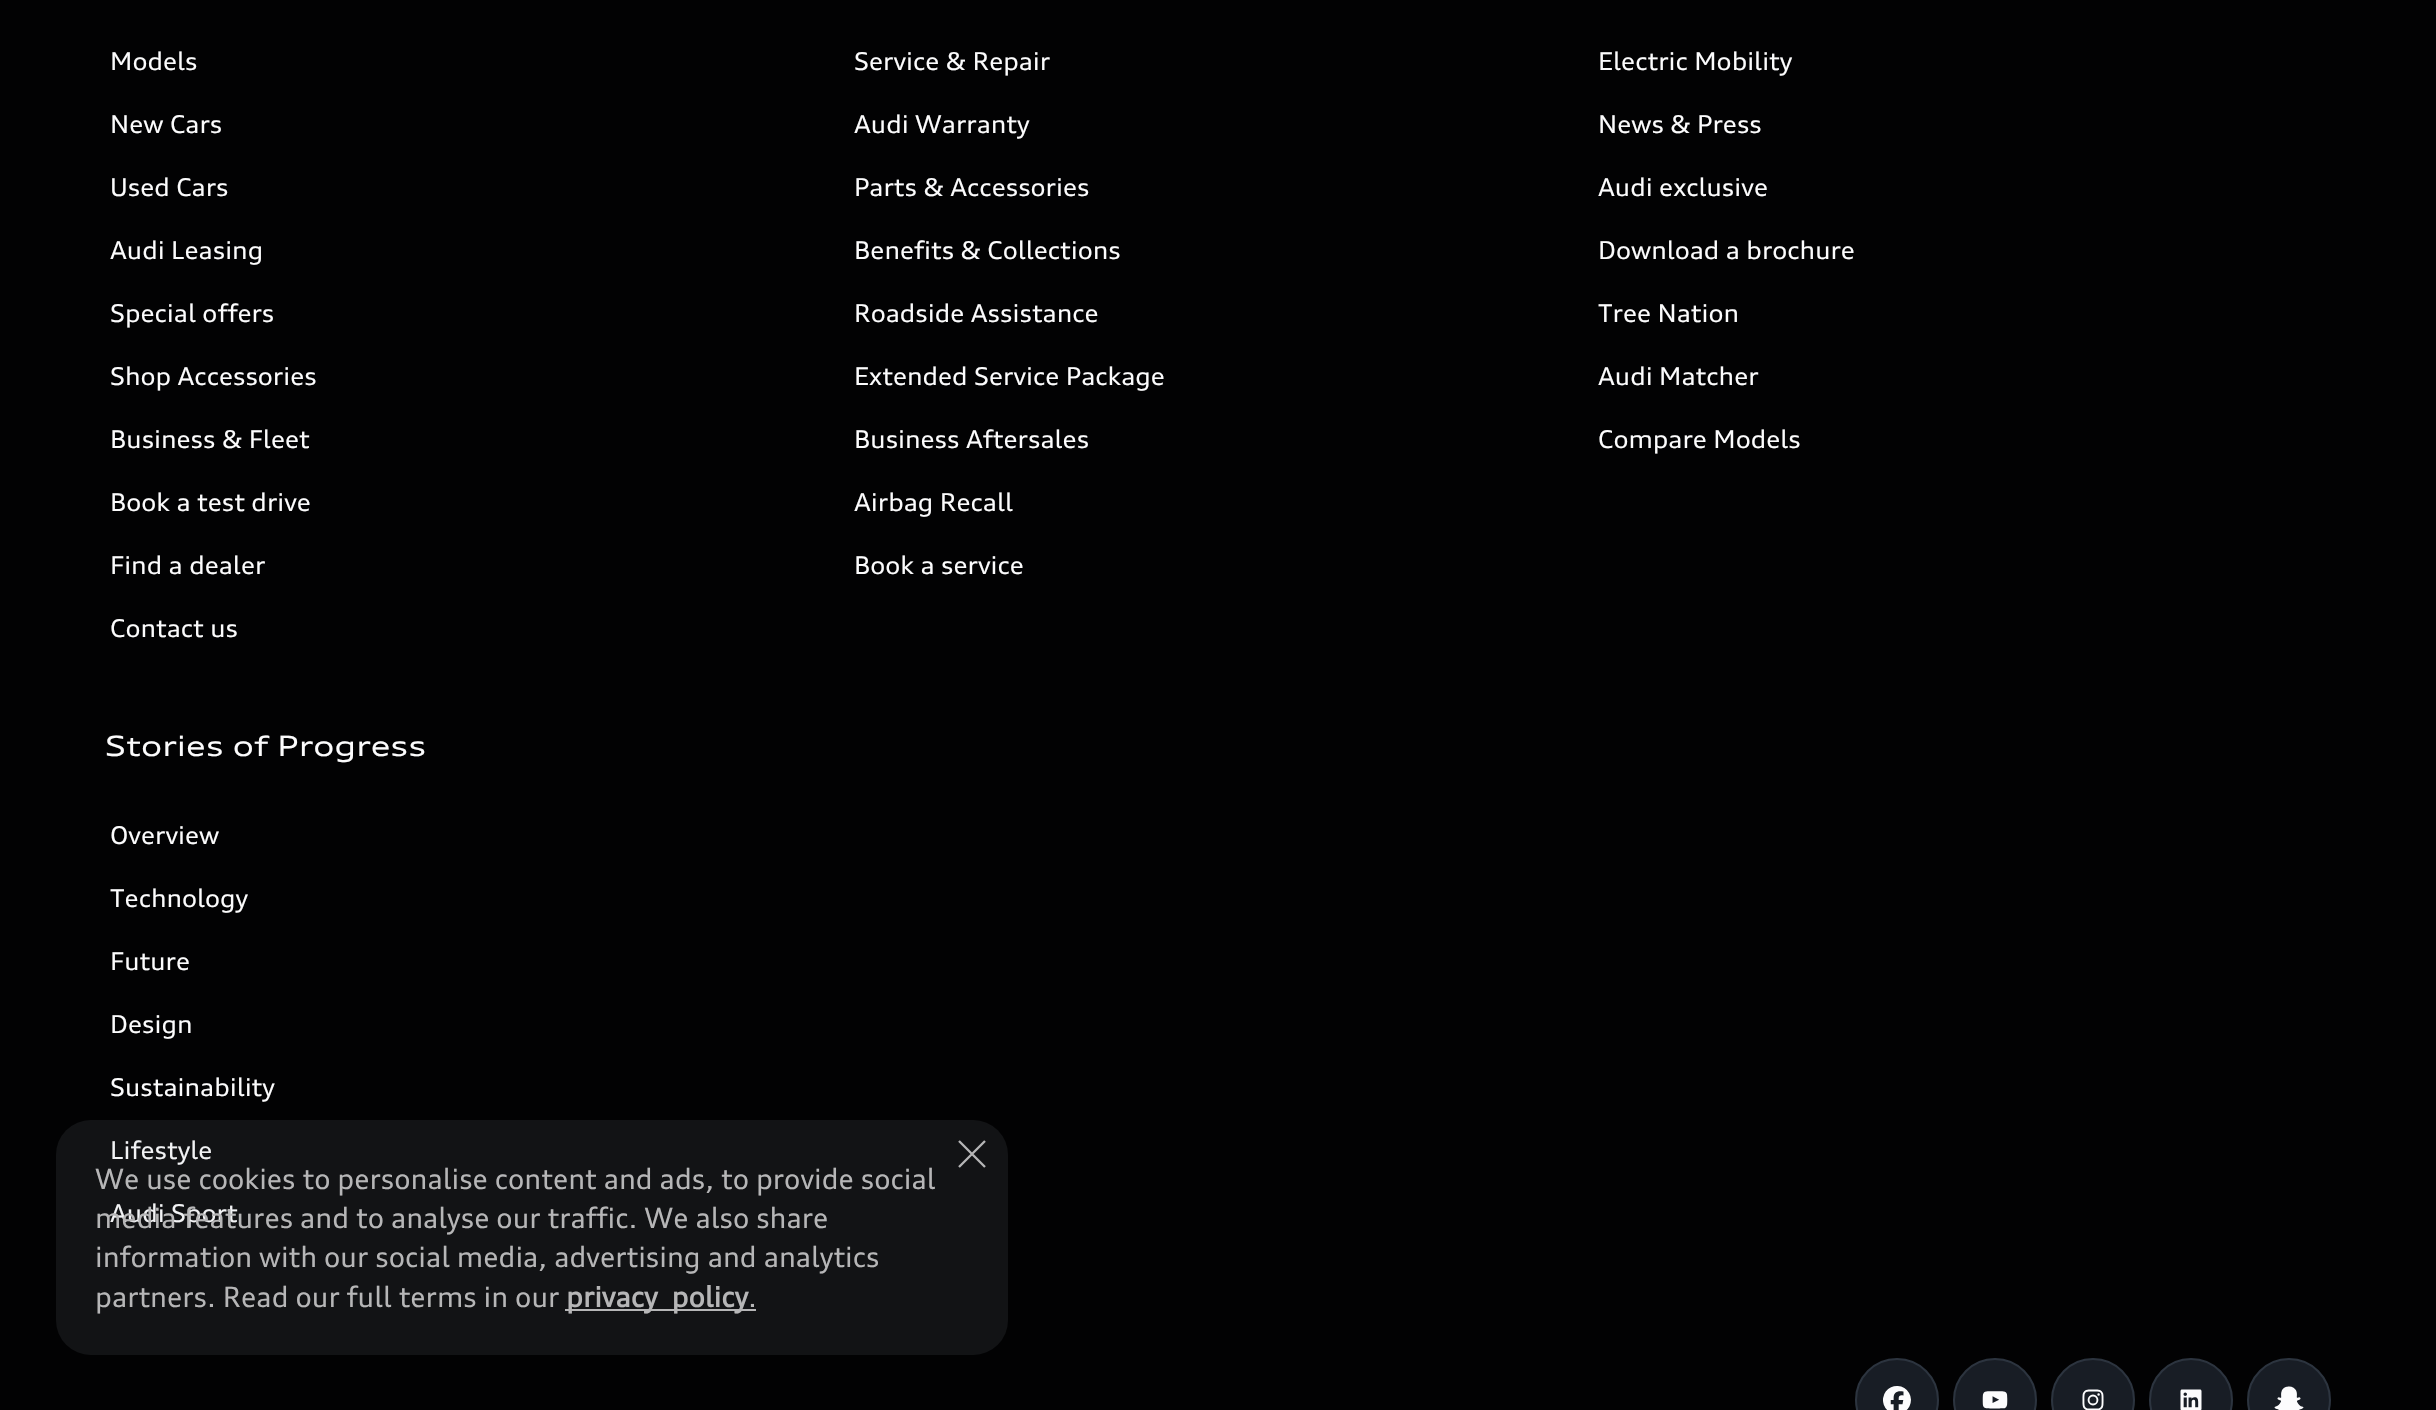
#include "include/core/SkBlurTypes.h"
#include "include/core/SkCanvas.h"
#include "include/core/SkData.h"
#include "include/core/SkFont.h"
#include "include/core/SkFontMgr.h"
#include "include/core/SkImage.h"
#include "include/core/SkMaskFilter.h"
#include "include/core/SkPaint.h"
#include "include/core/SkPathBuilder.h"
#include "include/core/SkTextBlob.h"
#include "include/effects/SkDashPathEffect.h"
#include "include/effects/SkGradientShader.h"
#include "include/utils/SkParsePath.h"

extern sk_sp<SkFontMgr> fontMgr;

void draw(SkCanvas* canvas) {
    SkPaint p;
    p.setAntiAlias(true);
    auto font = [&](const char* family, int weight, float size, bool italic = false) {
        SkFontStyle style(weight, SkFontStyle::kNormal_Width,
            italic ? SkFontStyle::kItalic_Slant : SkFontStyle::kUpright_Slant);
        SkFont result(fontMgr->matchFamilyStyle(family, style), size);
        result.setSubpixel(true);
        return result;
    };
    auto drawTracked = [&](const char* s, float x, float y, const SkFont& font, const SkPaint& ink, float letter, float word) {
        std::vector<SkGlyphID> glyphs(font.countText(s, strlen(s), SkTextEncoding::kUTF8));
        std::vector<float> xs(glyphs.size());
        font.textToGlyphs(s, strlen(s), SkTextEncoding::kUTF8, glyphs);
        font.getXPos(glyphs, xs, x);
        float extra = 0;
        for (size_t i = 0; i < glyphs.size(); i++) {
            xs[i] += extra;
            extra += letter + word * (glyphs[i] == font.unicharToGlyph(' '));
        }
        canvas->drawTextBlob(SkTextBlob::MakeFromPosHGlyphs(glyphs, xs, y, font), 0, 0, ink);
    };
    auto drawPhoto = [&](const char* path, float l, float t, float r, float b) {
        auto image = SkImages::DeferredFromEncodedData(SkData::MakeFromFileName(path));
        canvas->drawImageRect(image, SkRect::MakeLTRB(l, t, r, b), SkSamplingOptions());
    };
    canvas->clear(0xFF020203);
    auto font1 = font("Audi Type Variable", 400, 24.5f);
    p.setColor(0xFFFCFCFD);
    {
        const struct { const char* s; float x, y; } items[] = {
            {"Models", 110, 70},
            {"New Cars", 110, 133},
            {"Used Cars", 110, 196},
            {"Audi Leasing", 110, 259},
            {"Special offers", 110, 322},
            {"Shop Accessories", 110, 385},
            {"Business & Fleet", 110, 448},
            {"Book a test drive", 110, 511},
            {"Find a dealer", 110, 574},
            {"Contact us", 110, 637},
            {"Service & Repair", 854, 70},
            {"Audi Warranty", 854, 133},
            {"Parts & Accessories", 854, 196},
            {"Benefits & Collections", 854, 259},
            {"Roadside Assistance", 854, 322},
            {"Extended Service Package", 854, 385},
            {"Business Aftersales", 854, 448},
            {"Airbag Recall", 854, 511},
            {"Book a service", 854, 574},
            {"Electric Mobility", 1598, 70},
            {"News & Press", 1598, 133},
            {"Audi exclusive", 1598, 196},
            {"Download a brochure", 1598, 259},
            {"Tree Nation", 1598, 322},
            {"Audi Matcher", 1598, 385},
            {"Compare Models", 1598, 448},
        };
        for (auto [s, x, y] : items) {
            canvas->drawString(s, x, y, font1, p);
        }
    }
    auto font2 = font("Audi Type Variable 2", 400, 28);
    canvas->drawString("Stories of Progress", 105, 756, font2, p);
    {
        const struct { const char* s; float x, y; } items[] = {
            {"Overview", 110, 844},
            {"Technology", 110, 907},
            {"Future", 110, 970},
            {"Design", 110, 1033},
            {"Sustainability", 110, 1096},
            {"Lifestyle", 110, 1159},
            {"Audi Sport", 110, 1222},
        };
        for (auto [s, x, y] : items) {
            canvas->drawString(s, x, y, font1, p);
        }
    }
    p.setColor(0xFF181D25);
    canvas->drawCircle(1897, 1400, 41, p);
    p.setStyle(SkPaint::kStroke_Style);
    p.setStrokeWidth(2);
    p.setColor(0xFF2C343F);
    canvas->drawCircle(1897, 1400, 41, p);
    drawPhoto("media/1.png", 1883, 1386, 1911, 1410);
    p.setStyle(SkPaint::kFill_Style);
    p.setColor(0xFF181D25);
    canvas->drawCircle(1995, 1400, 41, p);
    p.setStyle(SkPaint::kStroke_Style);
    p.setColor(0xFF2C343F);
    canvas->drawCircle(1995, 1400, 41, p);
    drawPhoto("media/2.png", 1982, 1391, 2008, 1409);
    p.setStyle(SkPaint::kFill_Style);
    p.setColor(0xFF181D25);
    canvas->drawCircle(2093, 1400, 41, p);
    p.setStyle(SkPaint::kStroke_Style);
    p.setColor(0xFF2C343F);
    canvas->drawCircle(2093, 1400, 41, p);
    drawPhoto("media/3.png", 2082, 1389, 2104, 1410);
    p.setStyle(SkPaint::kFill_Style);
    p.setColor(0xFF181D25);
    canvas->drawCircle(2191, 1400, 41, p);
    p.setStyle(SkPaint::kStroke_Style);
    p.setColor(0xFF2C343F);
    canvas->drawCircle(2191, 1400, 41, p);
    drawPhoto("media/4.png", 2180, 1389, 2202, 1410);
    p.setStyle(SkPaint::kFill_Style);
    p.setColor(0xFF181D25);
    canvas->drawCircle(2289, 1400, 41, p);
    p.setStyle(SkPaint::kStroke_Style);
    p.setColor(0xFF2C343F);
    canvas->drawCircle(2289, 1400, 41, p);
    drawPhoto("media/5.png", 2274, 1386, 2304, 1410);
    p.setStyle(SkPaint::kFill_Style);
    p.setColor(0x1A9AA3B1);
    canvas->drawRoundRect(SkRect::MakeLTRB(56, 1120, 1008, 1355), 35, 35, p);
    p.setStyle(SkPaint::kStroke_Style);
    p.setStrokeWidth(2.3f);
    p.setColor(0xFFB6B6B7);
    canvas->drawPath(SkPathBuilder().moveTo(959, 1167).lineTo(985, 1141).moveTo(959, 1141).lineTo(985, 1167).detach(), p);
    auto font3 = font("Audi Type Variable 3", 400, 28);
    p.setStyle(SkPaint::kFill_Style);
    {
        const struct { const char* s; float x, y; } items[] = {
            {"We use cookies to personalise content and ads, to provide social", 95, 1189},
            {"media features and to analyse our traffic. We also share", 95, 1228},
            {"information with our social media, advertising and analytics", 95, 1267},
            {"partners. Read our full terms in our", 95, 1307},
        };
        for (auto [s, x, y] : items) {
            canvas->drawString(s, x, y, font3, p);
        }
    }
    canvas->drawRect(SkRect::MakeLTRB(565, 1309, 747, 1311), p);
    auto font4 = font("Audi Type Variable", 700, 28);
    drawTracked("privacy policy", 566, 1307, font4, p, 0, 7);
    canvas->drawString(".", 748, 1307, font3, p);
    canvas->drawRect(SkRect::MakeLTRB(747, 1309, 756, 1311), p);
}
